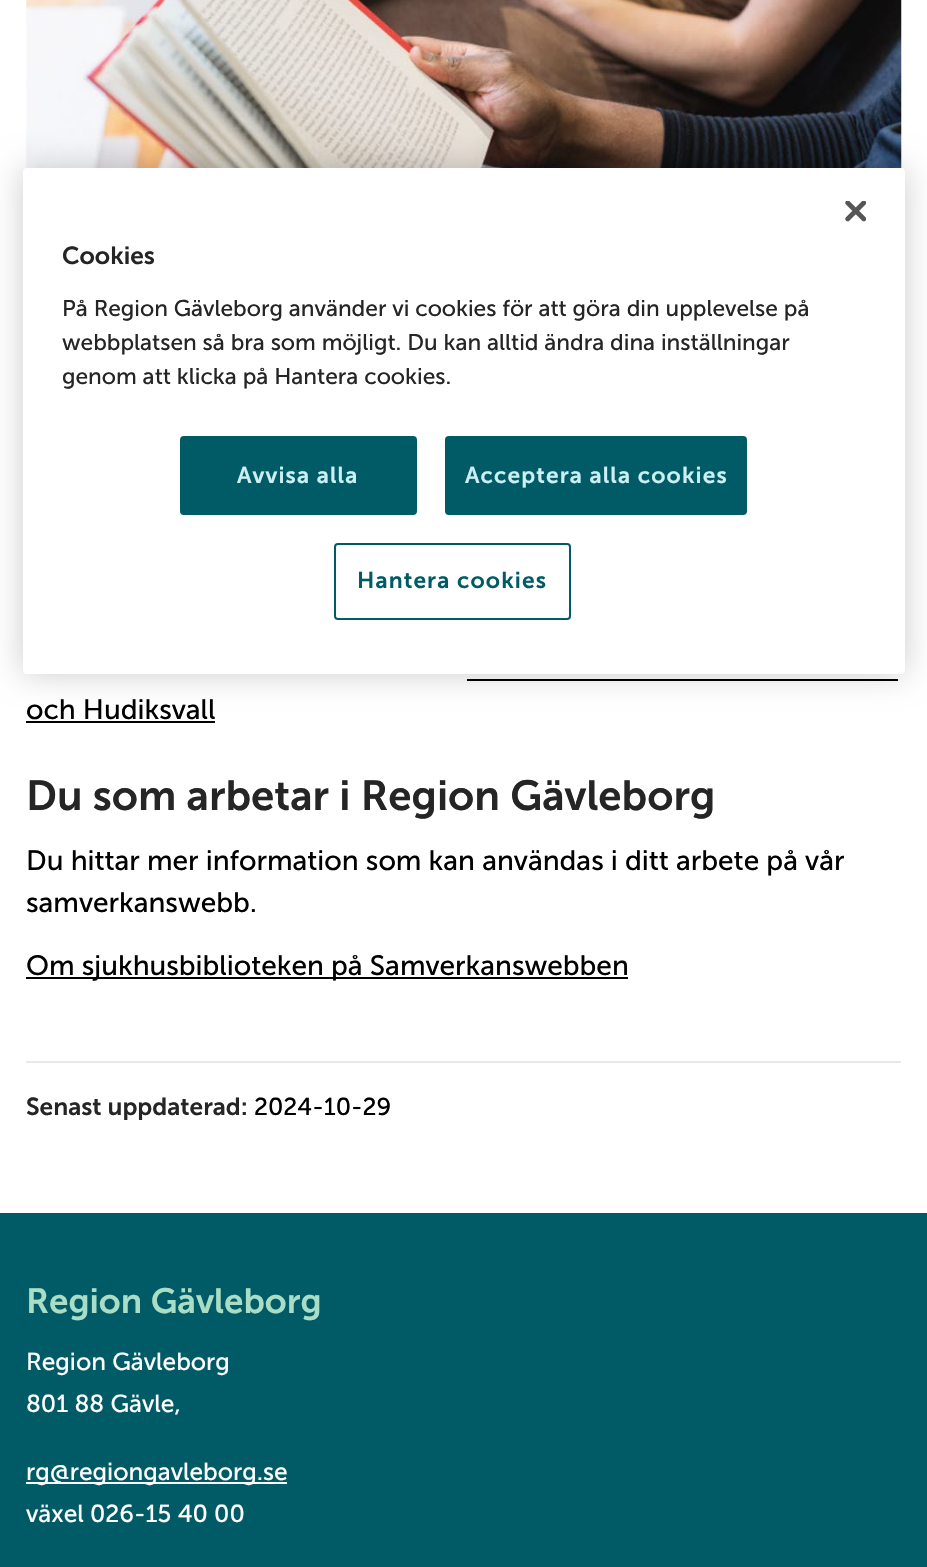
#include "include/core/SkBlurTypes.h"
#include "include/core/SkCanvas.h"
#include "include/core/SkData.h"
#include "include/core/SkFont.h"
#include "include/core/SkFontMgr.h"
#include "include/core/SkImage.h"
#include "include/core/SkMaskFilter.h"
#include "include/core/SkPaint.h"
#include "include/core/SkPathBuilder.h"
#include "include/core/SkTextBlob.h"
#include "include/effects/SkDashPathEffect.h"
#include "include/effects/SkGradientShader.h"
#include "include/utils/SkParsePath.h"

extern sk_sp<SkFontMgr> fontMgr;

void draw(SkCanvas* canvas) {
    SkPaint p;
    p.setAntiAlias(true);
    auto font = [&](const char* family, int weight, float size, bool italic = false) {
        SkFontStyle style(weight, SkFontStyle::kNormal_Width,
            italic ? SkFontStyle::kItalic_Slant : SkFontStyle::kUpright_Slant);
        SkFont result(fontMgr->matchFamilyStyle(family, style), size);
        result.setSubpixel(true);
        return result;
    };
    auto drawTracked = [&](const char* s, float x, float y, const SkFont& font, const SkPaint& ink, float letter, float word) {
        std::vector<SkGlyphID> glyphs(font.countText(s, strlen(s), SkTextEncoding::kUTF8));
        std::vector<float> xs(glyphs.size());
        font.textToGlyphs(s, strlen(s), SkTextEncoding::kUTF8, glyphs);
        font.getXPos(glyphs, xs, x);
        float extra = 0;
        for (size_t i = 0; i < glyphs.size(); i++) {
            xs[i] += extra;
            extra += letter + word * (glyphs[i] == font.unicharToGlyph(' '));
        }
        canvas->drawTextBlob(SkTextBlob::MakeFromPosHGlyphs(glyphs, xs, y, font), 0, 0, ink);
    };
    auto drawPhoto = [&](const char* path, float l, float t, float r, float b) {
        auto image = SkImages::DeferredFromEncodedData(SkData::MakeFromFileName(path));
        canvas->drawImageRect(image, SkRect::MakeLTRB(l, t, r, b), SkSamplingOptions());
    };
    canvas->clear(0xFFFFFFFF);
    drawPhoto("media/2.png", 26, 0, 902, 169);
    p.setColor(0xFF000000);
    canvas->drawRect(SkRect::MakeLTRB(467, 679, 898, 681), p);
    canvas->drawRect(SkRect::MakeLTRB(26, 721, 215, 723), p);
    p.setColor(0x33000000);
    p.setMaskFilter(SkMaskFilter::MakeBlur(kNormal_SkBlurStyle, 16));
    canvas->drawRoundRect(SkRect::MakeLTRB(23, 168, 905, 674), 4, 4, p);
    p.setMaskFilter(nullptr);
    p.setColor(0xFFFFFFFF);
    canvas->drawRoundRect(SkRect::MakeLTRB(23, 168, 905, 674), 4, 4, p);
    drawPhoto("media/1.png", 845, 201, 866, 222);
    auto font1 = font("Museo Sans", 600, 24.5f);
    p.setColor(0xFF252525);
    canvas->drawString("Cookies", 62, 264, font1, p);
    auto font2 = font("Museo Sans", 400, 22.75f);
    {
        const struct { const char* s; float x, y; } items[] = {
            {"På Region Gävleborg använder vi cookies för att göra din upplevelse på", 62, 316},
            {"webbplatsen så bra som möjligt. Du kan alltid ändra dina inställningar", 62, 350},
            {"genom att klicka på Hantera cookies.", 62, 384},
        };
        for (auto [s, x, y] : items) {
            canvas->drawString(s, x, y, font2, p);
        }
    }
    p.setColor(0xFF005B67);
    canvas->drawRoundRect(SkRect::MakeLTRB(181, 437, 416, 514), 3, 3, p);
    p.setStyle(SkPaint::kStroke_Style);
    p.setStrokeWidth(2);
    canvas->drawRoundRect(SkRect::MakeLTRB(181, 437, 416, 514), 3, 3, p);
    auto font3 = font("Museo Sans", 600, 22.75f);
    p.setStyle(SkPaint::kFill_Style);
    p.setColor(0xFFCCF0F2);
    drawTracked("Avvisa alla", 237, 483, font3, p, 1.1f, 0);
    p.setColor(0xFF005B67);
    canvas->drawRoundRect(SkRect::MakeLTRB(446, 437, 746, 514), 3, 3, p);
    p.setStyle(SkPaint::kStroke_Style);
    canvas->drawRoundRect(SkRect::MakeLTRB(446, 437, 746, 514), 3, 3, p);
    p.setStyle(SkPaint::kFill_Style);
    p.setColor(0xFFCCF0F2);
    drawTracked("Acceptera alla cookies", 465, 483, font3, p, 1.1f, 0);
    p.setStyle(SkPaint::kStroke_Style);
    p.setColor(0xFF005B67);
    canvas->drawRoundRect(SkRect::MakeLTRB(335, 544, 570, 619), 3, 3, p);
    p.setStyle(SkPaint::kFill_Style);
    drawTracked("Hantera cookies", 357, 588, font3, p, 1.1f, 0);
    auto font4 = font("Museo Sans", 400, 28);
    p.setColor(0xFF000000);
    canvas->drawString("och Hudiksvall", 26, 719, font4, p);
    auto font5 = font("Museo Sans", 600, 42);
    p.setColor(0xFF252525);
    canvas->drawString("Du som arbetar i Region Gävleborg", 26, 810, font5, p);
    p.setColor(0xFF000000);
    canvas->drawString("Du hittar mer information som kan användas i ditt arbete på vår", 26, 870, font4, p);
    canvas->drawString("samverkanswebb.", 26, 912, font4, p);
    canvas->drawRect(SkRect::MakeLTRB(26, 977, 628, 979), p);
    canvas->drawString("Om sjukhusbiblioteken på Samverkanswebben", 26, 975, font4, p);
    p.setColor(0xFFEBE9E5);
    canvas->drawRect(SkRect::MakeLTRB(26, 1061, 901, 1063), p);
    p.setColor(0xFF252525);
    canvas->drawString("Senast uppdaterad:", 26, 1115, font1, p);
    auto font6 = font("Museo Sans", 400, 24.5f);
    p.setColor(0xFF000000);
    canvas->drawString("2024-10-29", 254, 1115, font6, p);
    p.setColor(0xFF005B67);
    canvas->drawRect(SkRect::MakeLTRB(0, 1213, 927, 1567), p);
    auto font7 = font("Museo Sans", 600, 35);
    p.setColor(0xFFA9DDC6);
    canvas->drawString("Region Gävleborg", 26, 1313, font7, p);
    p.setColor(0xFFFFFFFF);
    canvas->drawString("Region Gävleborg", 26, 1370, font6, p);
    canvas->drawString("801 88 Gävle,", 26, 1412, font6, p);
    canvas->drawRect(SkRect::MakeLTRB(26, 1482, 287, 1484), p);
    canvas->drawString("rg@regiongavleborg.se", 26, 1480, font6, p);
    canvas->drawString("växel 026-15 40 00", 26, 1522, font6, p);
}
